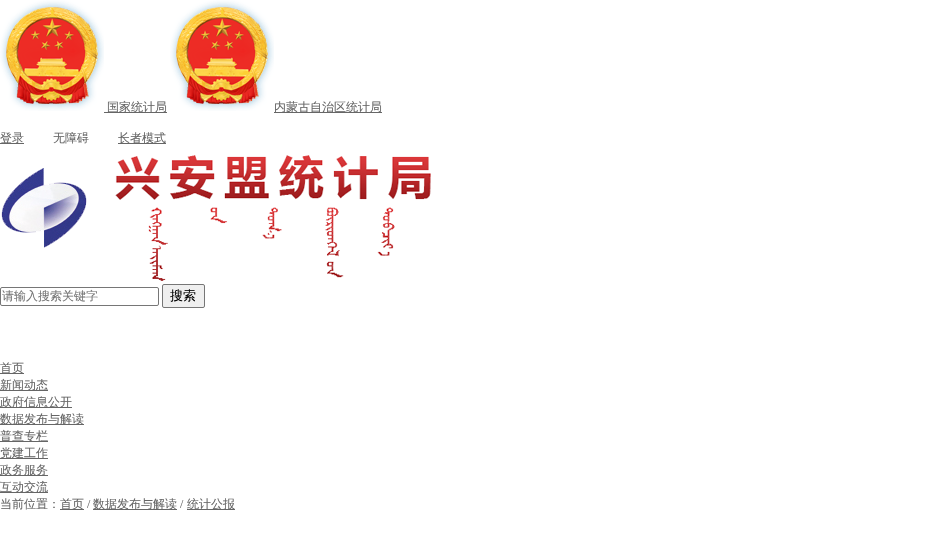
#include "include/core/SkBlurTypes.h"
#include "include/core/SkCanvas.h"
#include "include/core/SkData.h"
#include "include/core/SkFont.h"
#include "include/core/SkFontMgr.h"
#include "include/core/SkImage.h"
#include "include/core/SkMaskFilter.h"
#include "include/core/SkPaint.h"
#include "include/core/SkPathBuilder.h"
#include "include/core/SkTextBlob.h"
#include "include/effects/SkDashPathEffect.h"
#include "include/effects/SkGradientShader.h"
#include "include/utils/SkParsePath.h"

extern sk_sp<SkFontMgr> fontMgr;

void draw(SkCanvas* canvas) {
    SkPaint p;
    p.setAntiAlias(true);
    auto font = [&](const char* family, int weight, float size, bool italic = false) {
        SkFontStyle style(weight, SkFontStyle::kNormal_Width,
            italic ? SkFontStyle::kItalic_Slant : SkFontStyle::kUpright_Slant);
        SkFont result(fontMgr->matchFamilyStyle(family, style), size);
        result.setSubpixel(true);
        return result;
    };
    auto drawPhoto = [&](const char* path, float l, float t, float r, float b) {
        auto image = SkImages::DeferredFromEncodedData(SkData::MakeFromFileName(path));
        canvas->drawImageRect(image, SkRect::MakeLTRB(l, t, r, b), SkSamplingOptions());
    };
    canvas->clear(0xFFFFFFFF);
    drawPhoto("media/1.png", 0, 0, 104, 111);
    p.setColor(0xFF666666);
    canvas->drawRect(SkRect::MakeLTRB(104, 112, 167, 113), p);
    auto font1 = font("WenQuanYi Zen Hei", 500, 12);
    canvas->drawString("国家统计局", 107, 111, font1, p);
    drawPhoto("media/1.png", 170, 0, 274, 111);
    canvas->drawRect(SkRect::MakeLTRB(274, 112, 382, 113), p);
    canvas->drawString("内蒙古自治区统计局", 274, 111, font1, p);
    canvas->drawRect(SkRect::MakeLTRB(0, 143, 24, 144), p);
    canvas->drawString("登录", 0, 142, font1, p);
    canvas->drawString("无障碍", 53, 142, font1, p);
    canvas->drawRect(SkRect::MakeLTRB(118, 143, 166, 144), p);
    canvas->drawString("长者模式", 118, 142, font1, p);
    drawPhoto("media/2.png", 1, 155, 431, 281);
    p.setStyle(SkPaint::kStroke_Style);
    p.setStrokeWidth(1);
    p.setColor(0xFF767676);
    canvas->drawRoundRect(SkRect::MakeLTRB(0.5f, 287.5f, 158.5f, 305.5f), 1.5f, 1.5f, p);
    p.setStyle(SkPaint::kFill_Style);
    p.setColor(0xFF757575);
    canvas->drawString("请输入搜索关键字", 2, 300, font1, p);
    p.setColor(0xFFEFEFEF);
    canvas->drawRoundRect(SkRect::MakeLTRB(162.5f, 284.5f, 204.5f, 307.5f), 1.5f, 1.5f, p);
    p.setStyle(SkPaint::kStroke_Style);
    p.setColor(0xFF767676);
    canvas->drawRoundRect(SkRect::MakeLTRB(162.5f, 284.5f, 204.5f, 307.5f), 1.5f, 1.5f, p);
    auto font2 = font("WenQuanYi Zen Hei", 500, 13);
    p.setStyle(SkPaint::kFill_Style);
    p.setColor(0xFF000000);
    canvas->drawString("搜索", 170, 300, font2, p);
    p.setColor(0xFF666666);
    canvas->drawRect(SkRect::MakeLTRB(0, 373, 24, 374), p);
    canvas->drawString("首页", 0, 372, font1, p);
    canvas->drawRect(SkRect::MakeLTRB(0, 390, 48, 391), p);
    canvas->drawString("新闻动态", 0, 389, font1, p);
    canvas->drawRect(SkRect::MakeLTRB(0, 407, 72, 408), p);
    canvas->drawString("政府信息公开", 0, 406, font1, p);
    canvas->drawRect(SkRect::MakeLTRB(0, 424, 84, 425), p);
    canvas->drawString("数据发布与解读", 0, 423, font1, p);
    canvas->drawRect(SkRect::MakeLTRB(0, 441, 48, 442), p);
    canvas->drawString("普查专栏", 0, 440, font1, p);
    canvas->drawRect(SkRect::MakeLTRB(0, 458, 48, 459), p);
    canvas->drawString("党建工作", 0, 457, font1, p);
    canvas->drawRect(SkRect::MakeLTRB(0, 475, 48, 476), p);
    canvas->drawString("政务服务", 0, 474, font1, p);
    canvas->drawRect(SkRect::MakeLTRB(0, 492, 48, 493), p);
    canvas->drawString("互动交流", 0, 491, font1, p);
    canvas->drawString("当前位置：", 0, 508, font1, p);
    canvas->drawRect(SkRect::MakeLTRB(60, 509, 84, 510), p);
    canvas->drawString("首页", 60, 508, font1, p);
    auto font3 = font("Liberation Serif", 400, 12);
    canvas->drawString("/", 87, 508, font3, p);
    canvas->drawRect(SkRect::MakeLTRB(93, 509, 177, 510), p);
    canvas->drawString("数据发布与解读", 93, 508, font1, p);
    canvas->drawString("/", 180, 508, font3, p);
    canvas->drawRect(SkRect::MakeLTRB(187, 509, 235, 510), p);
    canvas->drawString("统计公报", 187, 508, font1, p);
}
